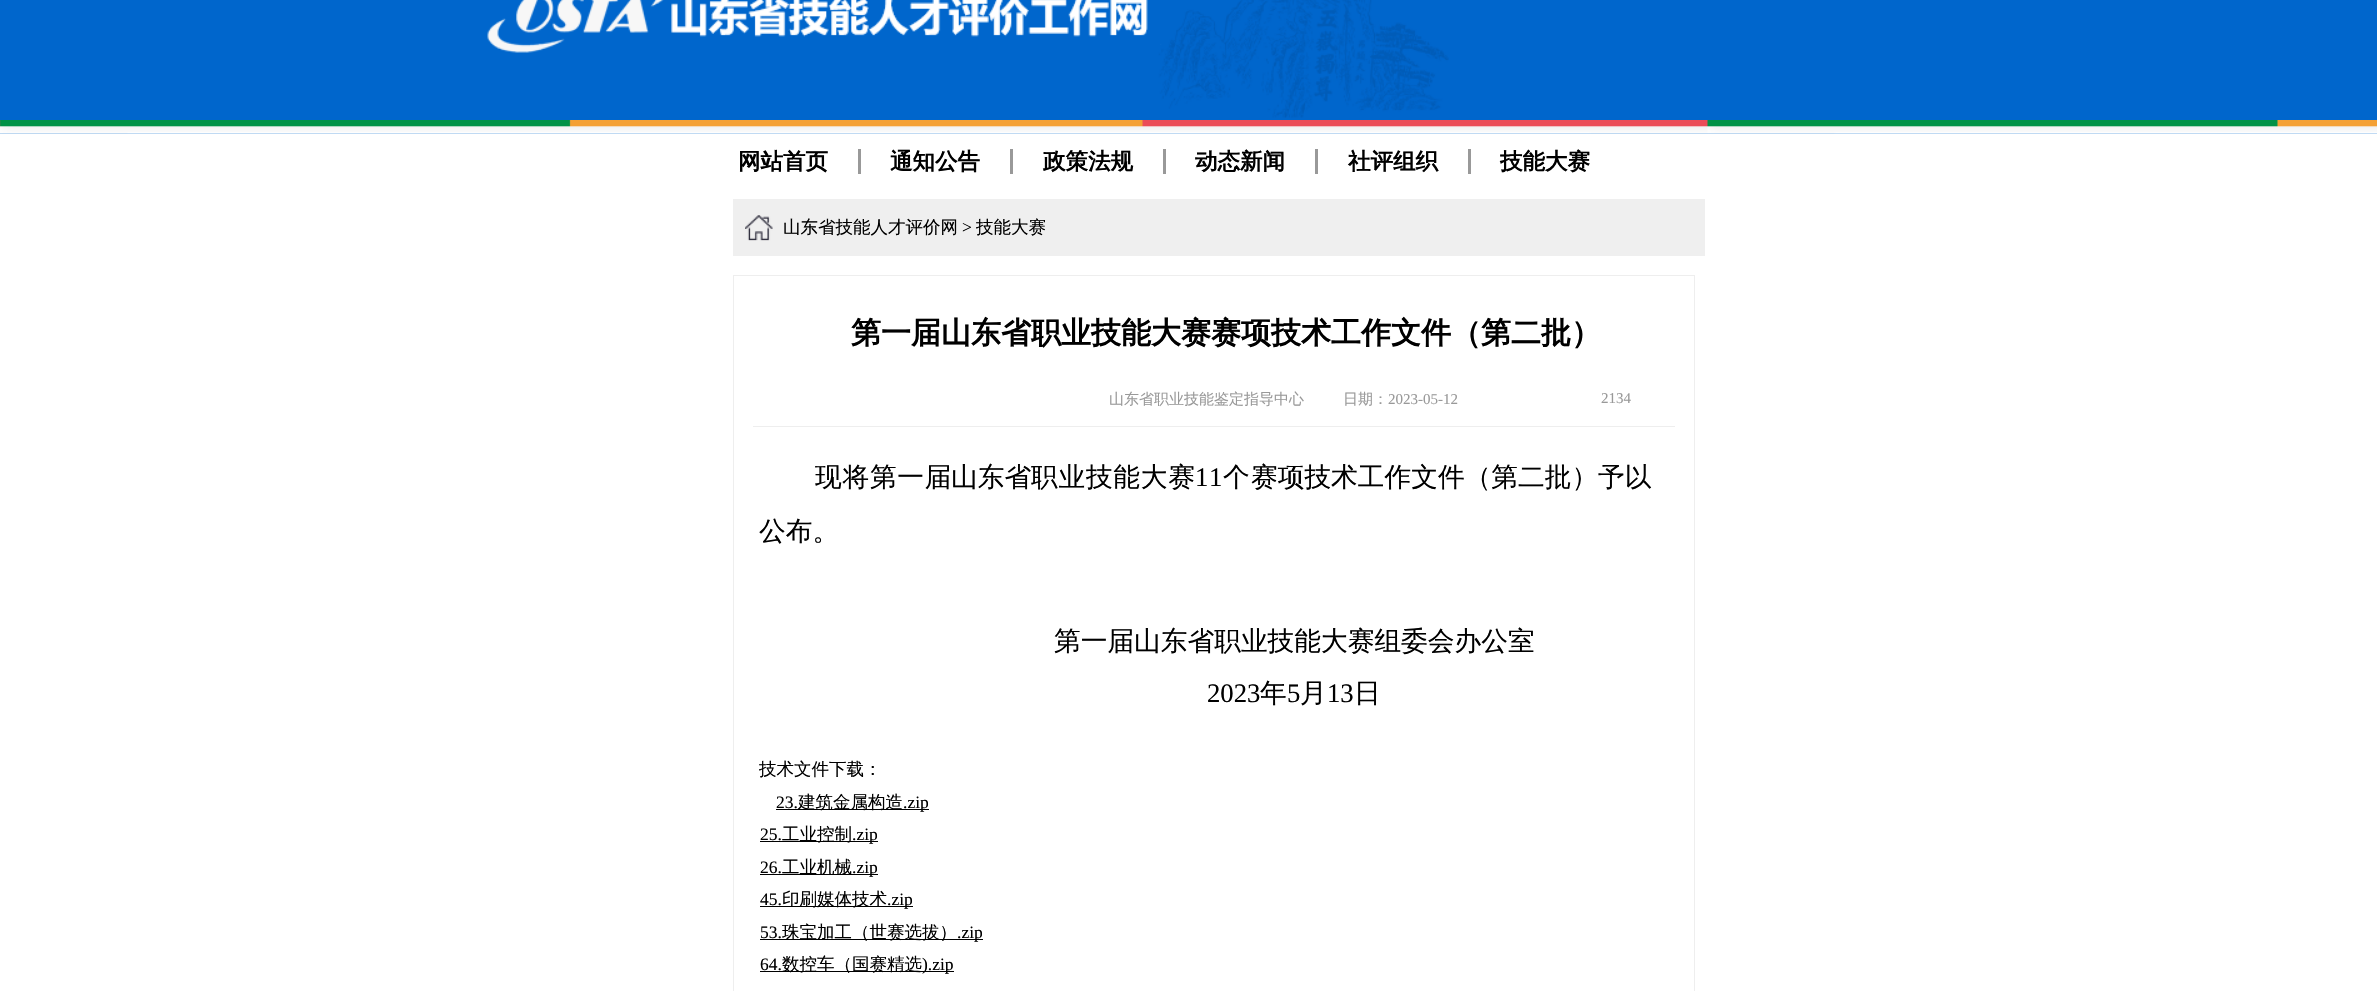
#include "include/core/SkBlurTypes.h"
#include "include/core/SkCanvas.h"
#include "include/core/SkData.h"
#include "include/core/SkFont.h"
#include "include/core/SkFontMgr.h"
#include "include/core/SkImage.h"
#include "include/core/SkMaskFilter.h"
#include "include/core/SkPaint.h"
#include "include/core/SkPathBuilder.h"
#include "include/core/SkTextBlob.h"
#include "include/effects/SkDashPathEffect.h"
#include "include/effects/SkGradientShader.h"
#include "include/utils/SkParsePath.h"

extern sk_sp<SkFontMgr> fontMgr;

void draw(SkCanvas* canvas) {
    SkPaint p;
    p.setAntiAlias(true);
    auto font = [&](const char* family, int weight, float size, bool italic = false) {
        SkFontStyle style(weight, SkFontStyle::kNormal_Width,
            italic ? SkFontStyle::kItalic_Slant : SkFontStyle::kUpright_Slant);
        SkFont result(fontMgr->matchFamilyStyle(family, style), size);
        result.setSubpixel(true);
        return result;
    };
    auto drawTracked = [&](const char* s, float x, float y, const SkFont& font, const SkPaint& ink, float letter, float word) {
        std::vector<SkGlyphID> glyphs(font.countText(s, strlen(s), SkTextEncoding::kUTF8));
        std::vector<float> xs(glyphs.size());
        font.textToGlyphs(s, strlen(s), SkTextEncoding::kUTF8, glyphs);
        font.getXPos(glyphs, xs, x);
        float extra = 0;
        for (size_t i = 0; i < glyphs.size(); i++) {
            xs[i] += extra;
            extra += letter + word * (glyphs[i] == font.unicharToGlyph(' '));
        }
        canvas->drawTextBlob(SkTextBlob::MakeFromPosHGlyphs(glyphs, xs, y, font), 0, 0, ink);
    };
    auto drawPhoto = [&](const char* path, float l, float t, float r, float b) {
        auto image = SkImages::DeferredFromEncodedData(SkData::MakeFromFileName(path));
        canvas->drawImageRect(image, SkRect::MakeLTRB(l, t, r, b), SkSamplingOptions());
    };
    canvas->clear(0xFFFFFFFF);
    p.setColor(0xFF0066CC);
    canvas->drawRect(SkRect::MakeLTRB(0, 0, 2377, 134), p);
    drawPhoto("media/1.png", 0, 120, 2377, 134);
    drawPhoto("media/2.png", 487, 0, 1449, 118);
    p.setColor(0xFF999999);
    canvas->drawRect(SkRect::MakeLTRB(858, 149, 861, 174), p);
    auto font1 = font("WenQuanYi Zen Hei", 700, 22.5f);
    p.setColor(0xFF000000);
    canvas->drawString("网站首页", 738, 169, font1, p);
    p.setColor(0xFF999999);
    canvas->drawRect(SkRect::MakeLTRB(1010, 149, 1013, 174), p);
    p.setColor(0xFF000000);
    canvas->drawString("通知公告", 890, 169, font1, p);
    p.setColor(0xFF999999);
    canvas->drawRect(SkRect::MakeLTRB(1163, 149, 1166, 174), p);
    p.setColor(0xFF000000);
    canvas->drawString("政策法规", 1043, 169, font1, p);
    p.setColor(0xFF999999);
    canvas->drawRect(SkRect::MakeLTRB(1315, 149, 1318, 174), p);
    p.setColor(0xFF000000);
    canvas->drawString("动态新闻", 1195, 169, font1, p);
    p.setColor(0xFF999999);
    canvas->drawRect(SkRect::MakeLTRB(1468, 149, 1471, 174), p);
    p.setColor(0xFF000000);
    canvas->drawString("社评组织", 1348, 169, font1, p);
    canvas->drawString("技能大赛", 1500, 169, font1, p);
    p.setColor(0xFFEFEFEF);
    canvas->drawRect(SkRect::MakeLTRB(733, 199, 1705, 256), p);
    drawPhoto("media/3.png", 745, 215, 773, 241);
    auto font2 = font("WenQuanYi Zen Hei", 500, 17.5f);
    p.setColor(0xFF000000);
    canvas->drawString("山东省技能人才评价网", 783, 233, font2, p);
    auto font3 = font("Liberation Serif", 400, 17.5f);
    canvas->drawString(">", 962, 233, font3, p);
    canvas->drawString("技能大赛", 976, 233, font2, p);
    p.setStyle(SkPaint::kStroke_Style);
    p.setStrokeWidth(1);
    p.setColor(0xFFEEEEEE);
    canvas->drawRect(SkRect::MakeLTRB(733.5f, 275.5f, 1694.5f, 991.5f), p);
    auto font4 = font("WenQuanYi Zen Hei", 700, 30);
    p.setStyle(SkPaint::kFill_Style);
    p.setColor(0xFF000000);
    canvas->drawString("第一届山东省职业技能大赛赛项技术工作文件（第二批）", 851, 343, font4, p);
    p.setColor(0xFFEEEEEE);
    canvas->drawRect(SkRect::MakeLTRB(753, 426, 1675, 427), p);
    auto font5 = font("WenQuanYi Zen Hei", 500, 15);
    p.setColor(0xFF999999);
    canvas->drawString("山东省职业技能鉴定指导中心", 1109, 404, font5, p);
    canvas->drawString("日期：", 1343, 404, font5, p);
    auto font6 = font("Liberation Serif", 400, 15);
    canvas->drawString("2023-05-12", 1388, 404, font6, p);
    canvas->drawString("2134", 1601, 403, font6, p);
    auto font7 = font("WenQuanYi Zen Hei", 500, 26.7f);
    p.setColor(0xFF000000);
    drawTracked("现将第一届", 815, 486, font7, p, 0.75f, 0);
    canvas->drawString("山东省", 951, 486, font7, p);
    drawTracked("职业技能大赛", 1031, 486, font7, p, 0.75f, 0);
    auto font8 = font("Liberation Serif", 400, 26.7f);
    drawTracked("11", 1195, 486, font8, p, 0.75f, 0);
    drawTracked("个", 1223, 486, font7, p, 0.75f, 0);
    {
        const struct { const char* s; float x, y; } items[] = {
            {"赛项技术工作文件（第二批）予以", 1251, 486},
            {"公布。", 759, 540},
            {"第一届山东省职业技能大赛组委会办公室", 1054, 650},
        };
        for (auto [s, x, y] : items) {
            canvas->drawString(s, x, y, font7, p);
        }
    }
    canvas->drawString("2023", 1207, 702, font8, p);
    canvas->drawString("年", 1260, 702, font7, p);
    canvas->drawString("5", 1287, 702, font8, p);
    canvas->drawString("月", 1300, 702, font7, p);
    canvas->drawString("13", 1327, 702, font8, p);
    canvas->drawString("日", 1354, 702, font7, p);
    canvas->drawString("技术文件下载：", 759, 775, font2, p);
    canvas->drawString("23.", 776, 808, font3, p);
    canvas->drawRect(SkRect::MakeLTRB(776, 809, 929, 810), p);
    canvas->drawString("建筑金属构造", 798, 808, font2, p);
    canvas->drawString(".zip", 903, 808, font3, p);
    canvas->drawString("25.", 760, 840, font3, p);
    canvas->drawRect(SkRect::MakeLTRB(760, 841, 878, 842), p);
    canvas->drawString("工业控制", 782, 840, font2, p);
    canvas->drawString(".zip", 852, 840, font3, p);
    canvas->drawString("26.", 760, 873, font3, p);
    canvas->drawRect(SkRect::MakeLTRB(760, 874, 878, 875), p);
    canvas->drawString("工业机械", 782, 873, font2, p);
    canvas->drawString(".zip", 852, 873, font3, p);
    canvas->drawString("45.", 760, 905, font3, p);
    canvas->drawRect(SkRect::MakeLTRB(760, 906, 913, 907), p);
    canvas->drawString("印刷媒体技术", 782, 905, font2, p);
    canvas->drawString(".zip", 887, 905, font3, p);
    canvas->drawString("53.", 760, 938, font3, p);
    canvas->drawRect(SkRect::MakeLTRB(760, 939, 983, 940), p);
    canvas->drawString("珠宝加工（世赛选拔）", 782, 938, font2, p);
    canvas->drawString(".zip", 957, 938, font3, p);
    canvas->drawString("64.", 760, 970, font3, p);
    canvas->drawRect(SkRect::MakeLTRB(760, 971, 954, 972), p);
    canvas->drawString("数控车（国赛精选", 782, 970, font2, p);
    canvas->drawString(").zip", 922, 970, font3, p);
}
